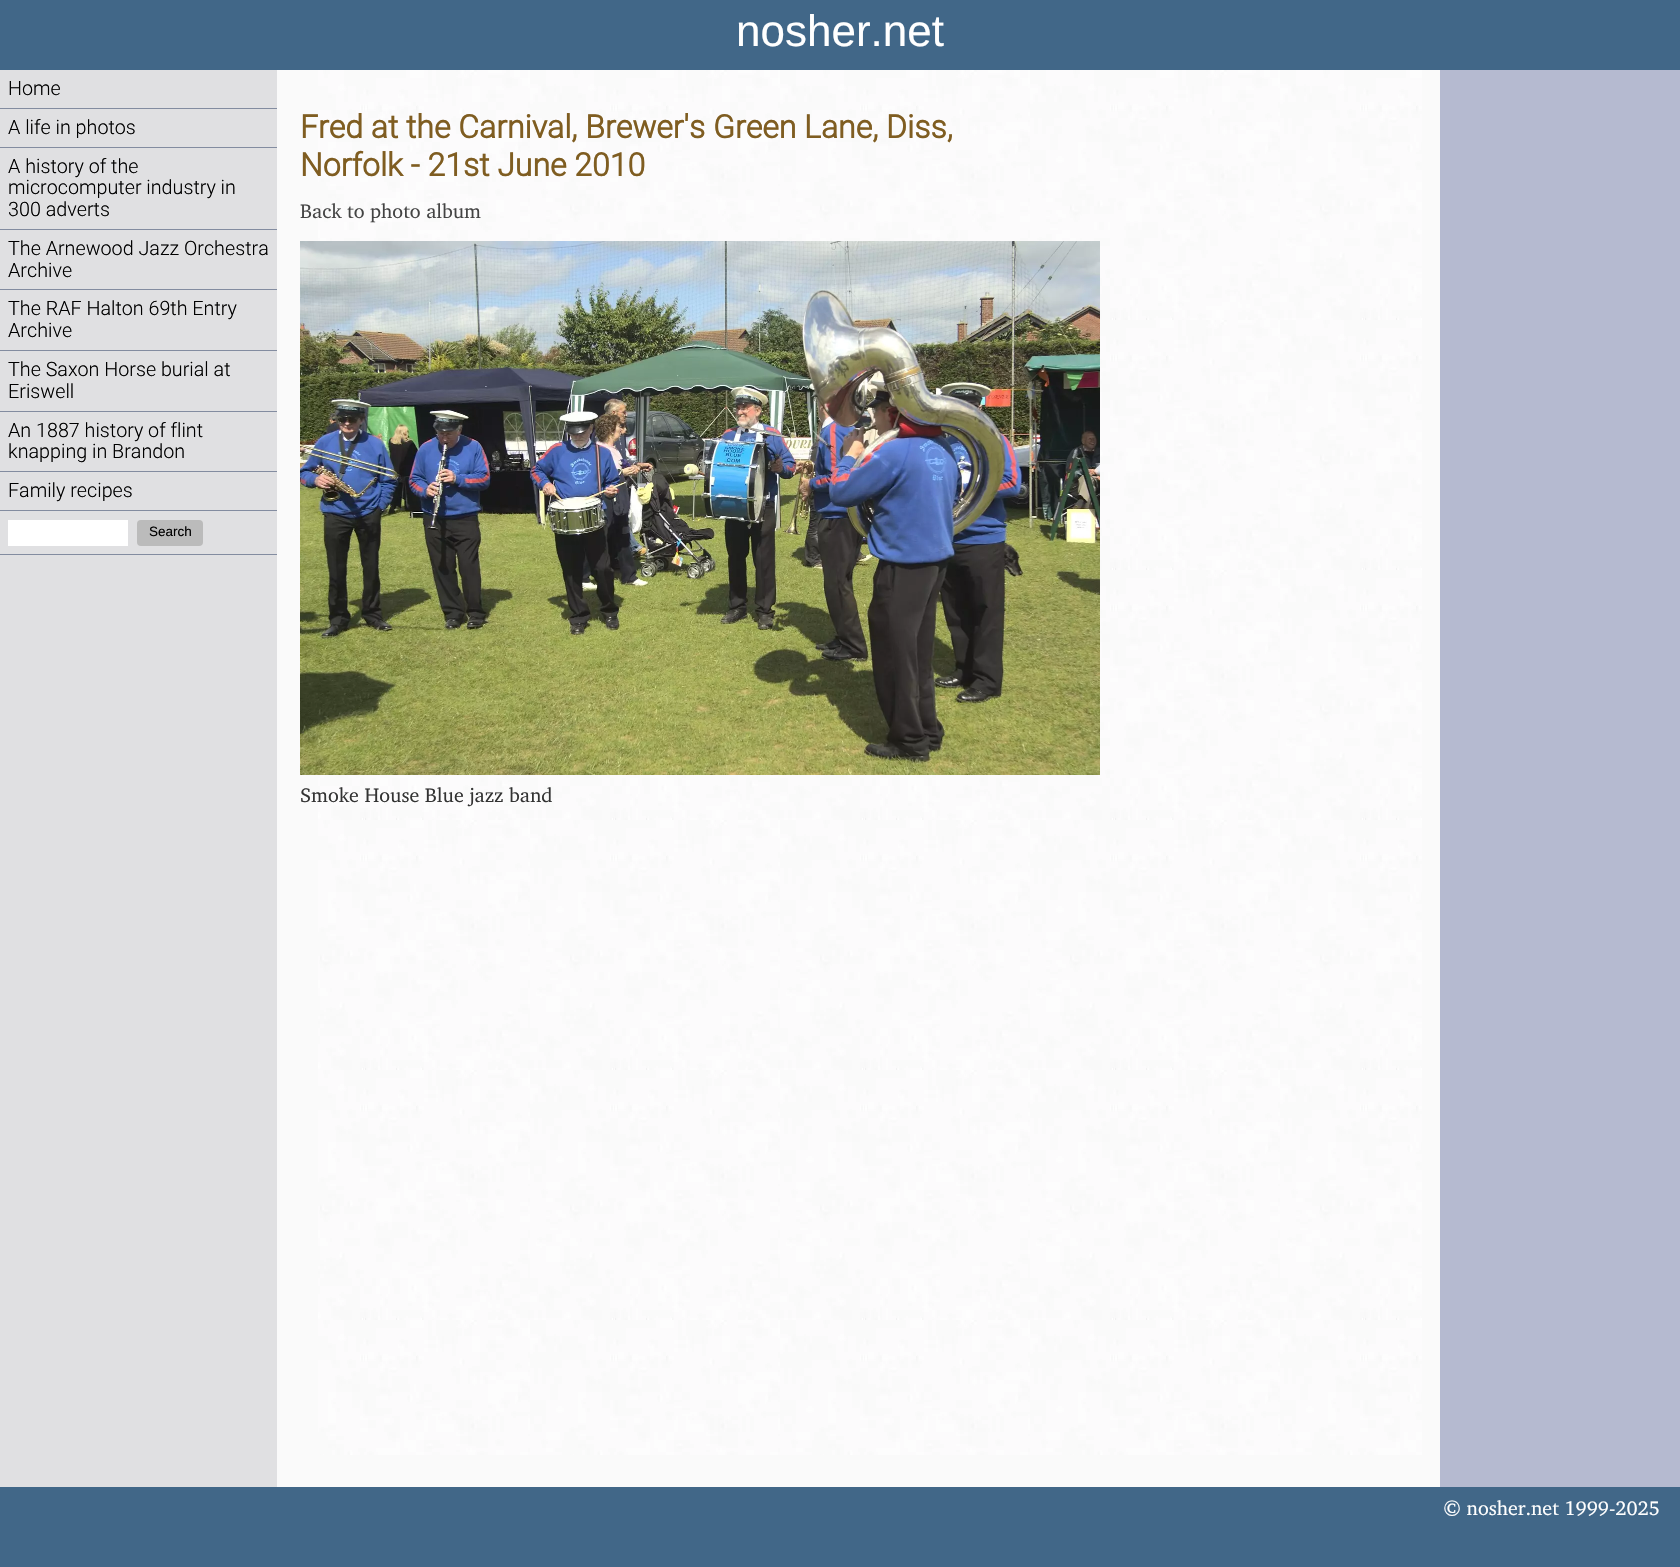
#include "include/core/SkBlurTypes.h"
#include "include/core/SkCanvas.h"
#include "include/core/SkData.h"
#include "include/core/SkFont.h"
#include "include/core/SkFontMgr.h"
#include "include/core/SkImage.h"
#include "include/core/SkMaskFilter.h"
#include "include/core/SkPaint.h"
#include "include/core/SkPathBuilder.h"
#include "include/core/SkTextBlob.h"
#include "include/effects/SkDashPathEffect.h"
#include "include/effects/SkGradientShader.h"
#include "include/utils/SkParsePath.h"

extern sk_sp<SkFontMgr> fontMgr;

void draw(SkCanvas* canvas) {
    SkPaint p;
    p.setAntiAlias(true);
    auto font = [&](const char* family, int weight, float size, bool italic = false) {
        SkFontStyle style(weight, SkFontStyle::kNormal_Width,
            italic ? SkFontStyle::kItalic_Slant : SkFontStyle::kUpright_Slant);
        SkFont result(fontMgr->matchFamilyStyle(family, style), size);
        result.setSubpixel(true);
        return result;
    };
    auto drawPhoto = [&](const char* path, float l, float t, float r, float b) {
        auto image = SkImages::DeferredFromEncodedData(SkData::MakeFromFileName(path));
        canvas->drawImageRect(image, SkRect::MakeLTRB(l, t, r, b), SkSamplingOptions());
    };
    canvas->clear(0xFFFAFAFA);
    p.setColor(0xFF416788);
    canvas->drawRect(SkRect::MakeLTRB(0, 0, 1680, 70), p);
    auto font1 = font("Liberation Sans", 400, 44);
    p.setColor(0xFFFFFFFF);
    canvas->drawString("nosher.net", 736, 46, font1, p);
    p.setColor(0xFFE0E0E2);
    canvas->drawRect(SkRect::MakeLTRB(0, 70, 277, 1487), p);
    p.setColor(0xFF838CA0);
    canvas->drawRect(SkRect::MakeLTRB(0, 108, 277, 109), p);
    auto font2 = font("Roboto", 300, 19.75f);
    p.setColor(0xFF000000);
    canvas->drawString("Home", 8, 95, font2, p);
    p.setColor(0xFF838CA0);
    canvas->drawRect(SkRect::MakeLTRB(0, 147, 277, 148), p);
    p.setColor(0xFF000000);
    canvas->drawString("A life in photos", 8, 134, font2, p);
    p.setColor(0xFF838CA0);
    canvas->drawRect(SkRect::MakeLTRB(0, 229, 277, 230), p);
    p.setColor(0xFF000000);
    {
        const struct { const char* s; float x, y; } items[] = {
            {"A history of the", 8, 173},
            {"microcomputer industry in", 8, 194},
            {"300 adverts", 8, 216},
        };
        for (auto [s, x, y] : items) {
            canvas->drawString(s, x, y, font2, p);
        }
    }
    p.setColor(0xFF838CA0);
    canvas->drawRect(SkRect::MakeLTRB(0, 289, 277, 290), p);
    p.setColor(0xFF000000);
    canvas->drawString("The Arnewood Jazz Orchestra", 8, 255, font2, p);
    canvas->drawString("Archive", 8, 277, font2, p);
    p.setColor(0xFF838CA0);
    canvas->drawRect(SkRect::MakeLTRB(0, 350, 277, 351), p);
    p.setColor(0xFF000000);
    canvas->drawString("The RAF Halton 69th Entry", 8, 315, font2, p);
    canvas->drawString("Archive", 8, 337, font2, p);
    p.setColor(0xFF838CA0);
    canvas->drawRect(SkRect::MakeLTRB(0, 411, 277, 412), p);
    p.setColor(0xFF000000);
    canvas->drawString("The Saxon Horse burial at", 8, 376, font2, p);
    canvas->drawString("Eriswell", 8, 398, font2, p);
    p.setColor(0xFF838CA0);
    canvas->drawRect(SkRect::MakeLTRB(0, 471, 277, 472), p);
    p.setColor(0xFF000000);
    canvas->drawString("An 1887 history of flint", 8, 437, font2, p);
    canvas->drawString("knapping in Brandon", 8, 458, font2, p);
    p.setColor(0xFF838CA0);
    canvas->drawRect(SkRect::MakeLTRB(0, 510, 277, 511), p);
    p.setColor(0xFF000000);
    canvas->drawString("Family recipes", 8, 497, font2, p);
    p.setColor(0xFF838CA0);
    canvas->drawRect(SkRect::MakeLTRB(0, 554, 277, 555), p);
    p.setColor(0xFFFFFFFF);
    canvas->drawRect(SkRect::MakeLTRB(8, 520, 128, 546), p);
    p.setColor(0xFFBBBBBB);
    canvas->drawRoundRect(SkRect::MakeLTRB(137, 520, 203, 546), 4, 4, p);
    auto font3 = font("Liberation Sans", 400, 13.5f);
    p.setColor(0xFF000000);
    canvas->drawString("Search", 149, 536, font3, p);
    drawPhoto("media/1.png", 318, 70, 1422, 1455);
    auto font4 = font("Roboto", 700, 32);
    p.setColor(0xFF7F5D21);
    canvas->drawString("Fred at the Carnival, Brewer's Green Lane, Diss,", 300, 138, font4, p);
    canvas->drawString("Norfolk - 21st June 2010", 300, 176, font4, p);
    auto font5 = font("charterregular", 400, 20);
    p.setColor(0xFF444444);
    canvas->drawString("Back to photo album", 300, 218, font5, p);
    drawPhoto("media/2.png", 300, 241, 1100, 775);
    p.setColor(0xFF333333);
    canvas->drawString("Smoke House Blue jazz band", 300, 802, font5, p);
    p.setColor(0xFFB5BAD0);
    canvas->drawRect(SkRect::MakeLTRB(1440, 70, 1680, 1487), p);
    p.setColor(0xFF416788);
    canvas->drawRect(SkRect::MakeLTRB(0, 1487, 1680, 1567), p);
    p.setColor(0xFFFFFFFF);
    canvas->drawString("© nosher.net 1999-2025", 1443, 1515, font5, p);
}
